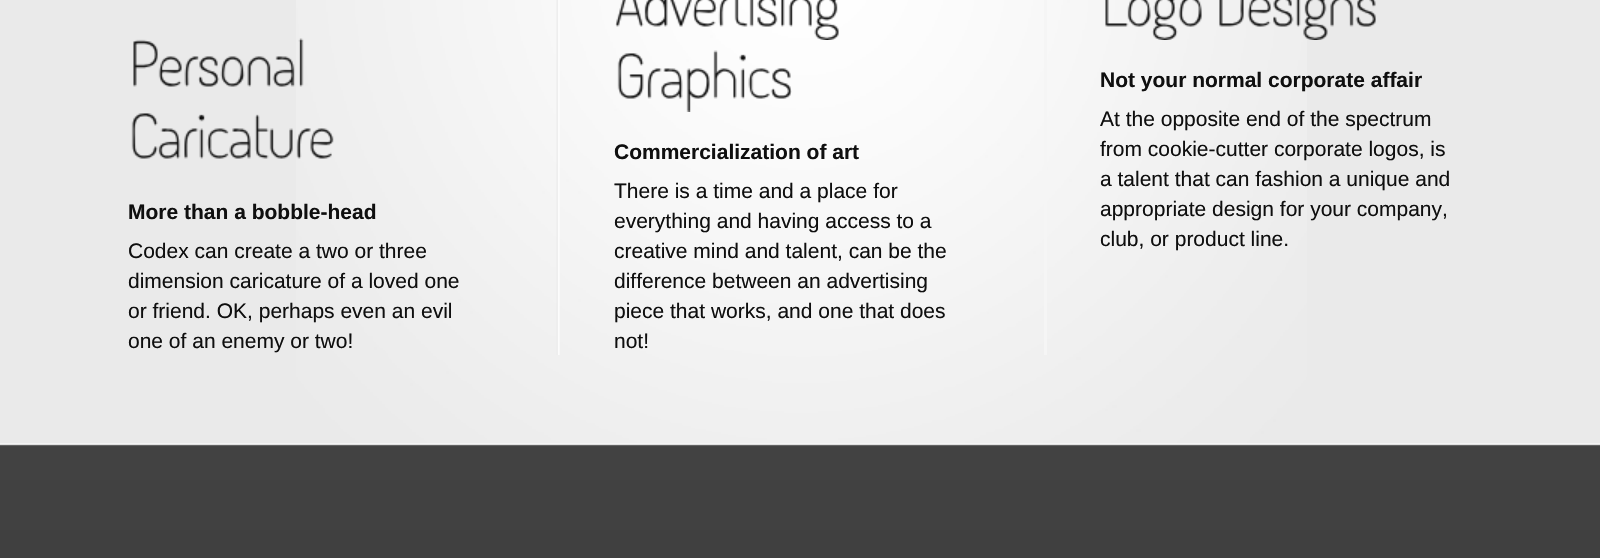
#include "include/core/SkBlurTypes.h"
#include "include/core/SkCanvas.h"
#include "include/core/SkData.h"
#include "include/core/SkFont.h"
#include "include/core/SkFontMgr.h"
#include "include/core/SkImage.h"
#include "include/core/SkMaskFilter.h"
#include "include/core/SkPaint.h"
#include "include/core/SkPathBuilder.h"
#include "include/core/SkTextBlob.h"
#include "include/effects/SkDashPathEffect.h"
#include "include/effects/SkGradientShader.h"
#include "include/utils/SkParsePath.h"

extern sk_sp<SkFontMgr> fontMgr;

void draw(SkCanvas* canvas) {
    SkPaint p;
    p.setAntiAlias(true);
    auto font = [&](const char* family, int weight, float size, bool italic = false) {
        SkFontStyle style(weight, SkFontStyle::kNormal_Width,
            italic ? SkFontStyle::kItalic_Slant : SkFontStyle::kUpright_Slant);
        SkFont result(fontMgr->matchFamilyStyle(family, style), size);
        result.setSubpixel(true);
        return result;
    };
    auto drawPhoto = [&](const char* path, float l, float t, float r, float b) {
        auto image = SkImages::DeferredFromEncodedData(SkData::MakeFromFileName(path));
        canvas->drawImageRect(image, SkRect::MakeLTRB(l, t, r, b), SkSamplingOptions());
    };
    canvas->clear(0xFFEAEAEA);
    drawPhoto("media/1.png", 296, 0, 1307, 443);
    drawPhoto("media/2.png", 556, 0, 560, 355);
    p.setColor(0xFFF5F5F5);
    canvas->drawRect(SkRect::MakeLTRB(1044, 0, 1047, 355), p);
    drawPhoto("media/3.png", 133, 38, 304, 87);
    drawPhoto("media/4.png", 131, 113, 334, 159);
    auto font1 = font("Liberation Sans", 700, 21);
    p.setColor(0xFF0F0F0F);
    canvas->drawString("More than a bobble-head", 128, 219, font1, p);
    auto font2 = font("Liberation Sans", 400, 21);
    {
        const struct { const char* s; float x, y; } items[] = {
            {"Codex can create a two or three", 128, 258},
            {"dimension caricature of a loved one", 128, 288},
            {"or friend. OK, perhaps even an evil", 128, 318},
            {"one of an enemy or two!", 128, 348},
        };
        for (auto [s, x, y] : items) {
            canvas->drawString(s, x, y, font2, p);
        }
    }
    drawPhoto("media/5.png", 615, 0, 839, 40);
    drawPhoto("media/6.png", 617, 50, 792, 112);
    canvas->drawString("Commercialization of art", 614, 159, font1, p);
    {
        const struct { const char* s; float x, y; } items[] = {
            {"There is a time and a place for", 614, 198},
            {"everything and having access to a", 614, 228},
            {"creative mind and talent, can be the", 614, 258},
            {"difference between an advertising", 614, 288},
            {"piece that works, and one that does", 614, 318},
            {"not!", 614, 348},
        };
        for (auto [s, x, y] : items) {
            canvas->drawString(s, x, y, font2, p);
        }
    }
    drawPhoto("media/7.png", 1105, 0, 1202, 40);
    drawPhoto("media/8.png", 1219, 0, 1376, 40);
    canvas->drawString("Not your normal corporate affair", 1100, 87, font1, p);
    {
        const struct { const char* s; float x, y; } items[] = {
            {"At the opposite end of the spectrum", 1100, 126},
            {"from cookie-cutter corporate logos, is", 1100, 156},
            {"a talent that can fashion a unique and", 1100, 186},
            {"appropriate design for your company,", 1100, 216},
            {"club, or product line.", 1100, 246},
        };
        for (auto [s, x, y] : items) {
            canvas->drawString(s, x, y, font2, p);
        }
    }
    drawPhoto("media/9.png", 0, 443, 1600, 558);
}
